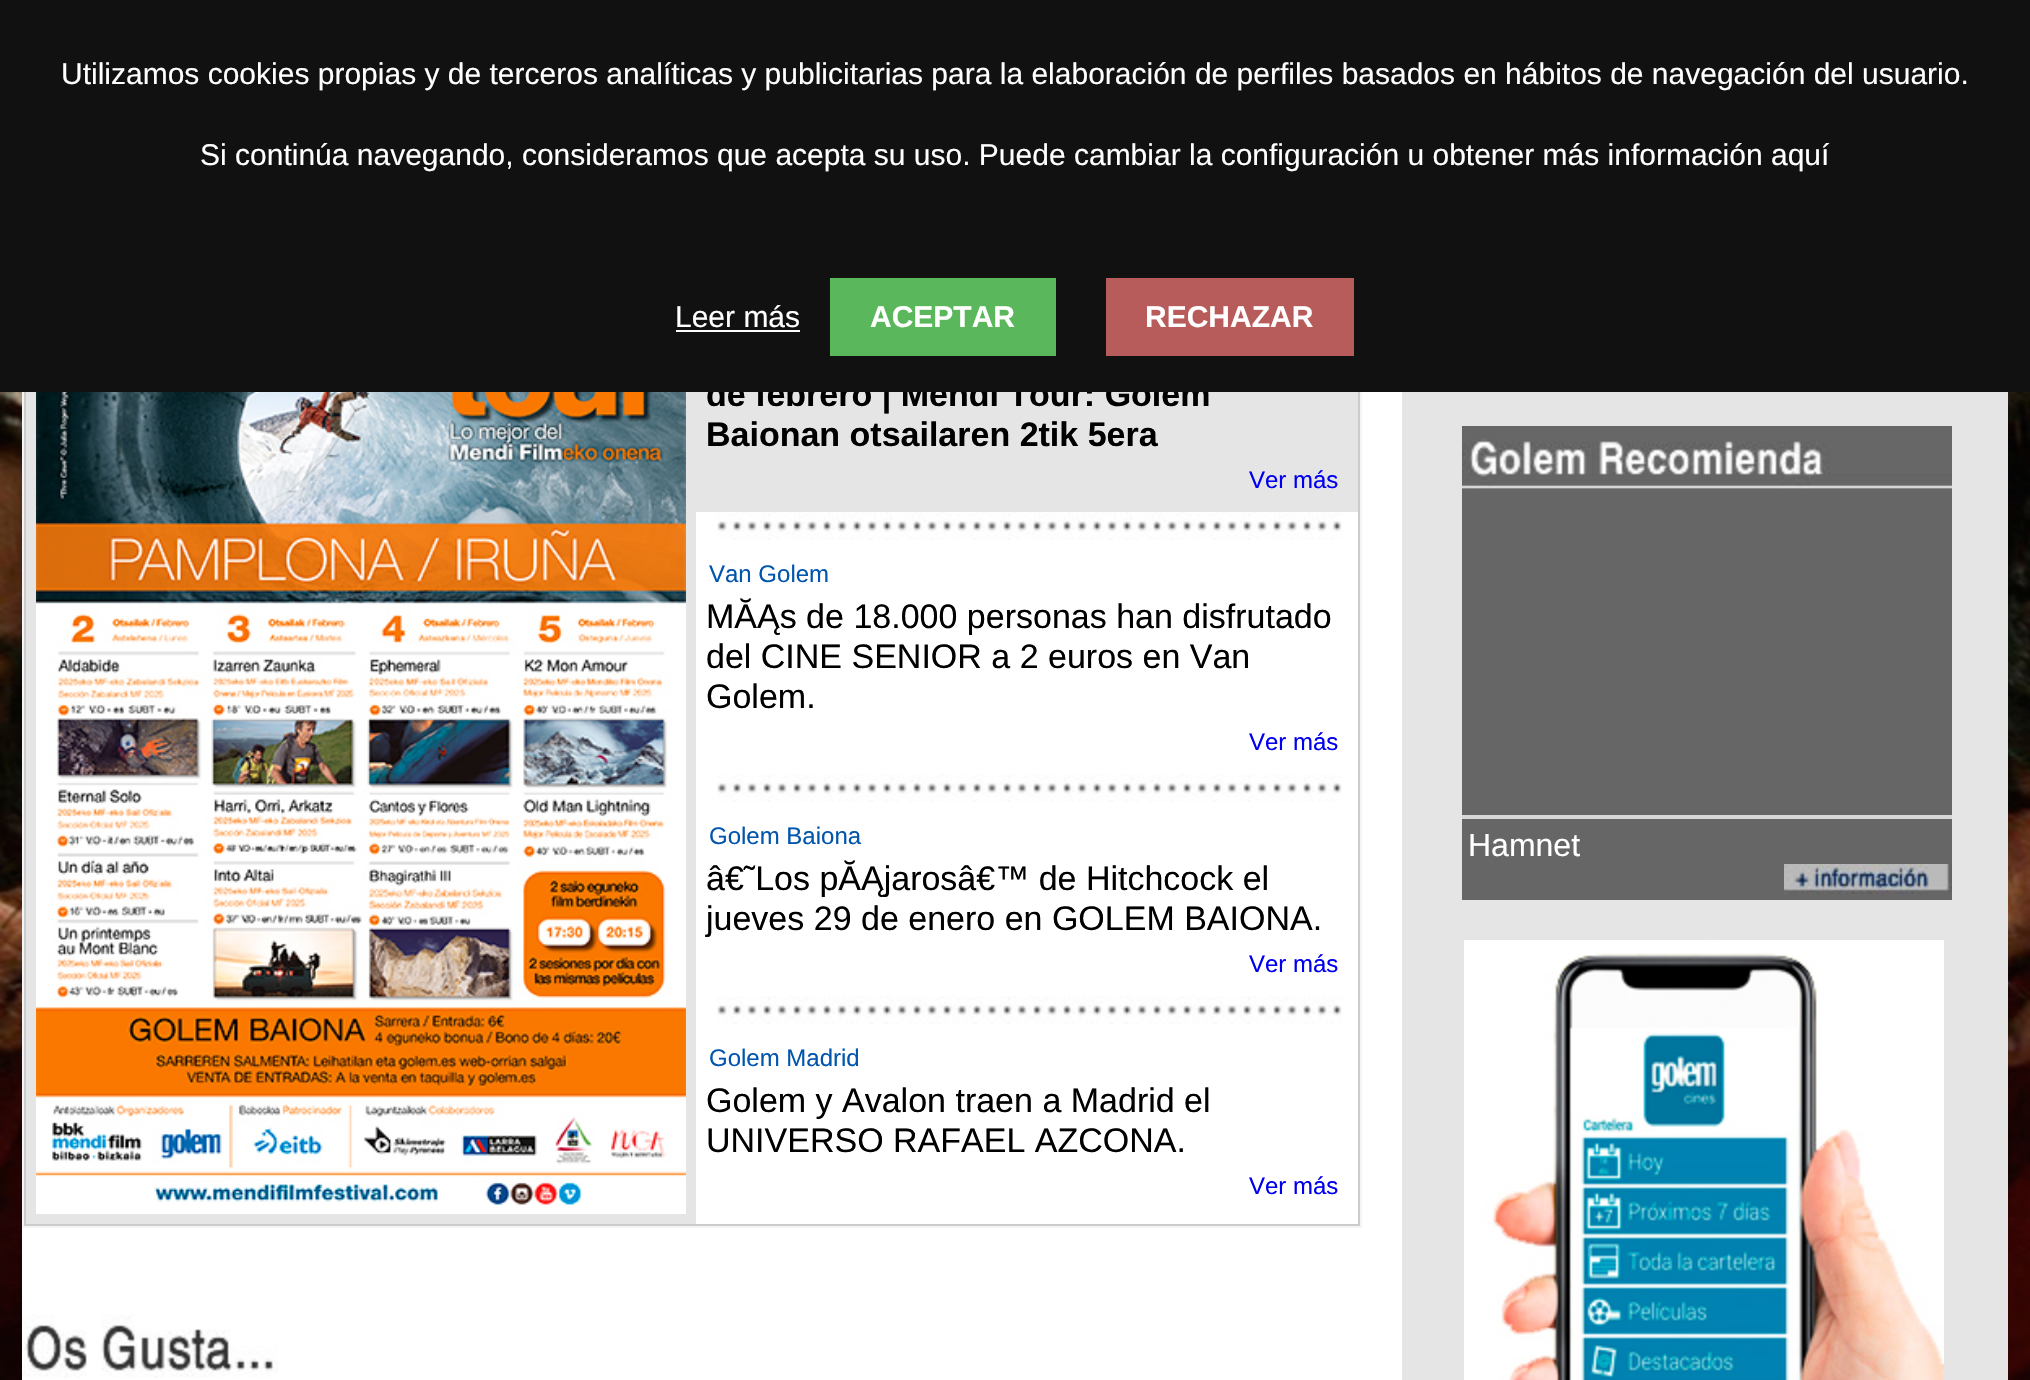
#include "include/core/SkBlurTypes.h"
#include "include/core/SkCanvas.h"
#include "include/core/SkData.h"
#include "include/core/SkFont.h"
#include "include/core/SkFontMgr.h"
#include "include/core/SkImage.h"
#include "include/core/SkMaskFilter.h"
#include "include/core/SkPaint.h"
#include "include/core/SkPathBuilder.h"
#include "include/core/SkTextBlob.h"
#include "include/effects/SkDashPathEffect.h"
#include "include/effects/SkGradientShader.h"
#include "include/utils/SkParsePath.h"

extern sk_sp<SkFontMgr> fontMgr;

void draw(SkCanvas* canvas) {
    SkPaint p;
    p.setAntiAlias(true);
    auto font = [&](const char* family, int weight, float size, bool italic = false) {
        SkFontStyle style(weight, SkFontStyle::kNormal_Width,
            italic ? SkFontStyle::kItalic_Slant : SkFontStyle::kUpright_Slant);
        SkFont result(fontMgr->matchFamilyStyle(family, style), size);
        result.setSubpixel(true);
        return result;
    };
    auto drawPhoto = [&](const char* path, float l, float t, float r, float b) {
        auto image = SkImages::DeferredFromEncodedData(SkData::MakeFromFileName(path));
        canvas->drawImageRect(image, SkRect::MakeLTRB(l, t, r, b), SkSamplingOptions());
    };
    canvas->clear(0xFFFFFFFF);
    drawPhoto("media/1.png", 0, 392, 2030, 1380);
    {
        const struct { float l, t, r, b; SkColor color; } items[] = {
            {22, 392, 203, 1380, 0xFFFFFFFF},
            {22, 392, 1362, 1228, 0xFFF5F5F5},
            {24, 392, 1360, 1226, 0xFFCCCCCC},
            {696, 392, 1358, 512, 0xFFE5E5E5},
        };
        for (auto [l, t, r, b, color] : items) {
            p.setColor(color);
            canvas->drawRect(SkRect::MakeLTRB(l, t, r, b), p);
        }
    }
    auto font1 = font("Liberation Sans", 700, 34);
    p.setColor(0xFF000000);
    canvas->drawString("de febrero | Mendi Tour: Golem", 706, 406, font1, p);
    p.setColor(0xFF111111);
    canvas->drawRect(SkRect::MakeLTRB(0, 0, 2030, 392), p);
    auto font2 = font("Liberation Sans", 400, 30);
    p.setColor(0xFFFFFFFF);
    {
        const struct { const char* s; float x, y; } items[] = {
            {"Utilizamos cookies propias y de terceros analíticas y publicitarias para la elaboración de perfiles basados en hábitos de navegación del usuario.", 61, 84},
            {"Si continúa navegando, consideramos que acepta su uso. Puede cambiar la configuración u obtener más información aquí", 200, 165},
            {"Leer más", 675, 327},
        };
        for (auto [s, x, y] : items) {
            canvas->drawString(s, x, y, font2, p);
        }
    }
    canvas->drawRect(SkRect::MakeLTRB(676, 330, 800, 332), p);
    p.setColor(0xFF5BB75B);
    canvas->drawRect(SkRect::MakeLTRB(830, 278, 1056, 356), p);
    auto font3 = font("Liberation Sans", 700, 30);
    p.setColor(0xFFFFFFFF);
    canvas->drawString("ACEPTAR", 870, 327, font3, p);
    p.setColor(0xFFB75B5B);
    canvas->drawRect(SkRect::MakeLTRB(1106, 278, 1354, 356), p);
    p.setColor(0xFFFFFFFF);
    canvas->drawString("RECHAZAR", 1145, 327, font3, p);
    p.setColor(0xFFE5E5E5);
    canvas->drawRect(SkRect::MakeLTRB(26, 392, 696, 1224), p);
    drawPhoto("media/2.png", 36, 392, 686, 1214);
    p.setColor(0xFFFFFFFF);
    canvas->drawRect(SkRect::MakeLTRB(696, 512, 1358, 1224), p);
    p.setColor(0xFF000000);
    canvas->drawString("Baionan otsailaren 2tik 5era", 706, 446, font1, p);
    auto font4 = font("Liberation Sans", 400, 24);
    p.setColor(0xFF0000EE);
    canvas->drawString("Ver más", 1249, 488, font4, p);
    drawPhoto("media/3.png", 717, 512, 1342, 540);
    p.setColor(0xFF0155AD);
    canvas->drawString("Van Golem", 709, 582, font4, p);
    auto font5 = font("Liberation Sans", 400, 34);
    p.setColor(0xFF000000);
    {
        const struct { const char* s; float x, y; } items[] = {
            {"MĂĄs de 18.000 personas han disfrutado", 706, 628},
            {"del CINE SENIOR a 2 euros en Van", 706, 668},
            {"Golem.", 706, 708},
        };
        for (auto [s, x, y] : items) {
            canvas->drawString(s, x, y, font5, p);
        }
    }
    p.setColor(0xFF0000EE);
    canvas->drawString("Ver más", 1249, 750, font4, p);
    drawPhoto("media/3.png", 717, 774, 1342, 802);
    p.setColor(0xFF0155AD);
    canvas->drawString("Golem Baiona", 709, 844, font4, p);
    p.setColor(0xFF000000);
    canvas->drawString("â€˜Los pĂĄjarosâ€™ de Hitchcock el", 706, 890, font5, p);
    canvas->drawString("jueves 29 de enero en GOLEM BAIONA.", 706, 930, font5, p);
    p.setColor(0xFF0000EE);
    canvas->drawString("Ver más", 1249, 972, font4, p);
    drawPhoto("media/3.png", 717, 996, 1342, 1024);
    p.setColor(0xFF0155AD);
    canvas->drawString("Golem Madrid", 709, 1066, font4, p);
    p.setColor(0xFF000000);
    canvas->drawString("Golem y Avalon traen a Madrid el", 706, 1112, font5, p);
    canvas->drawString("UNIVERSO RAFAEL AZCONA.", 706, 1152, font5, p);
    p.setColor(0xFF0000EE);
    canvas->drawString("Ver más", 1249, 1194, font4, p);
    drawPhoto("media/4.png", 22, 1314, 278, 1378);
    p.setColor(0xFFE5E5E5);
    canvas->drawRect(SkRect::MakeLTRB(1402, 392, 2008, 1380), p);
    p.setColor(0xFF666666);
    canvas->drawRect(SkRect::MakeLTRB(1462, 426, 1952, 900), p);
    drawPhoto("media/5.png", 1462, 438, 1952, 489);
    p.setColor(0xFFD7D7D7);
    canvas->drawRect(SkRect::MakeLTRB(1462, 815, 1952, 819), p);
    auto font6 = font("Liberation Sans", 400, 32);
    p.setColor(0xFFFFFFFF);
    canvas->drawString("Hamnet", 1468, 856, font6, p);
    drawPhoto("media/6.png", 1784, 864, 1952, 894);
    drawPhoto("media/7.png", 1464, 940, 1944, 1380);
}
